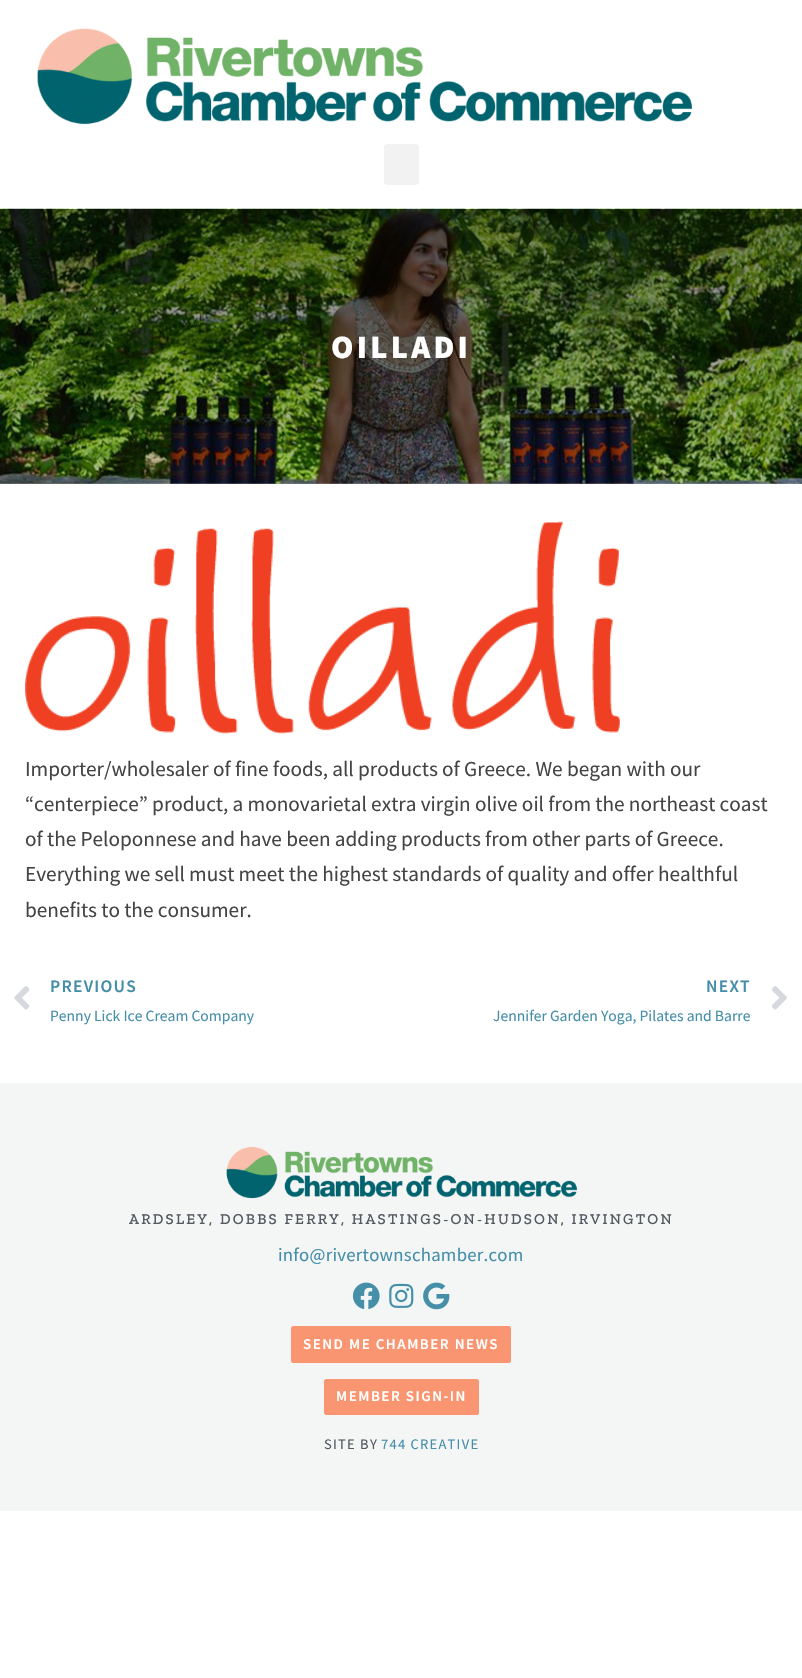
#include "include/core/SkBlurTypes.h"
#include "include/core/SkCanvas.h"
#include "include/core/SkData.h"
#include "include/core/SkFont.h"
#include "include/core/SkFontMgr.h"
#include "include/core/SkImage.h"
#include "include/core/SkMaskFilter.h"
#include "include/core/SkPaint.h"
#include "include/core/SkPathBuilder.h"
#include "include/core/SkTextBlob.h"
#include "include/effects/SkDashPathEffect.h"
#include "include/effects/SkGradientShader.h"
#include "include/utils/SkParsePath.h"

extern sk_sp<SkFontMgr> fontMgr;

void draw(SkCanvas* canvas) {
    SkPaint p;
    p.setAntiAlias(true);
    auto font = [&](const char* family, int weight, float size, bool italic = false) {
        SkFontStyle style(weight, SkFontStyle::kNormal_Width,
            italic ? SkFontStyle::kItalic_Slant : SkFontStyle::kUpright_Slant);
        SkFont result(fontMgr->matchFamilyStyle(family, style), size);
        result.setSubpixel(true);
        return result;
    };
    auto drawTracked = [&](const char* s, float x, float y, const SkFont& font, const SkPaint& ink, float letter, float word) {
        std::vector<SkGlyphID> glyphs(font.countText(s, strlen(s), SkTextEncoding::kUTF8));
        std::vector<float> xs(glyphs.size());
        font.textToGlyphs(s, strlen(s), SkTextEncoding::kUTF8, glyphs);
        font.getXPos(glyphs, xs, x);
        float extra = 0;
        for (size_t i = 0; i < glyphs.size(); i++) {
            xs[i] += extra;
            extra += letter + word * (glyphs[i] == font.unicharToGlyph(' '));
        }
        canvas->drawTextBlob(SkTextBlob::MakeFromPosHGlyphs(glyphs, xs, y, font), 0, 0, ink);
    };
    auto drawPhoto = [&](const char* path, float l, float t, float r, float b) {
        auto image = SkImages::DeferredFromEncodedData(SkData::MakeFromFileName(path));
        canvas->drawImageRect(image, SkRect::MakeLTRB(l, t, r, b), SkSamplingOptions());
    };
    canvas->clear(0xFFFFFFFF);
    drawPhoto("media/1.png", 37, 28, 692, 125);
    p.setColor(0xFFF2F2F2);
    canvas->drawRoundRect(SkRect::MakeLTRB(384, 144, 419, 185), 4, 4, p);
    drawPhoto("media/2.png", 0, 208, 802, 484);
    {
        const SkColor colors[] = {0x80000000, 0x40000000};
        const float stops[] = {0, 1};
        const SkPoint ends[] = {{401, 209}, {401, 484}};
        p.setShader(SkGradientShader::MakeLinear(ends, colors, stops, 2, SkTileMode::kClamp));
        p.setAlpha(255);
    }
    canvas->drawRect(SkRect::MakeLTRB(0, 209, 802, 484), p);
    auto font1 = font("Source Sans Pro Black", 900, 32.5f);
    p.setShader(nullptr);
    p.setColor(0xFFFFFFFF);
    drawTracked("OILLADI", 331, 358, font1, p, 3.25f, 0);
    drawPhoto("media/3.png", 25, 521, 620, 734);
    auto font2 = font("Source Sans Pro", 400, 21.25f);
    p.setColor(0xFF444444);
    {
        const struct { const char* s; float x, y; } items[] = {
            {"Importer/wholesaler of fine foods, all products of Greece. We began with our", 25, 776},
            {"“centerpiece” product, a monovarietal extra virgin olive oil from the northeast coast", 25, 811},
            {"of the Peloponnese and have been adding products from other parts of Greece.", 25, 846},
            {"Everything we sell must meet the highest standards of quality and offer healthful", 25, 881},
            {"benefits to the consumer.", 25, 917},
        };
        for (auto [s, x, y] : items) {
            canvas->drawString(s, x, y, font2, p);
        }
    }
    drawPhoto("media/4.png", 14, 986, 30, 1010);
    auto font3 = font("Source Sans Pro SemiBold", 600, 17.5f);
    p.setColor(0xFF458EA9);
    drawTracked("PREVIOUS", 50, 992, font3, p, 1.25f, 0);
    auto font4 = font("Source Sans Pro", 400, 15.6f);
    canvas->drawString("Penny Lick Ice Cream Company", 50, 1021, font4, p);
    drawTracked("NEXT", 706, 992, font3, p, 1.25f, 0);
    canvas->drawString("Jennifer Garden Yoga, Pilates and Barre", 493, 1021, font4, p);
    drawPhoto("media/5.png", 771, 986, 787, 1010);
    p.setColor(0xFFF4F5F5);
    canvas->drawRect(SkRect::MakeLTRB(0, 1083, 802, 1511), p);
    drawPhoto("media/6.png", 226, 1146, 577, 1199);
    auto font5 = font("Zilla Slab", 500, 15);
    p.setColor(0xFF54595F);
    drawTracked("ARDSLEY, DOBBS FERRY, HASTINGS-ON-HUDSON, IRVINGTON", 129, 1224, font5, p, 2.25f, 0);
    auto font6 = font("Source Sans Pro", 400, 18.75f);
    p.setColor(0xFF458EA9);
    drawTracked("info@rivertownschamber.com", 278, 1261, font6, p, 0.25f, 0);
    drawPhoto("media/7.png", 352, 1282, 380, 1309);
    drawPhoto("media/8.png", 389, 1283, 414, 1308);
    drawPhoto("media/9.png", 423, 1282, 450, 1310);
    p.setColor(0xFFF99570);
    canvas->drawRoundRect(SkRect::MakeLTRB(291, 1326, 511, 1363), 2.5f, 2.5f, p);
    auto font7 = font("Source Sans Pro SemiBold", 600, 15);
    p.setColor(0xFFFFFFFF);
    drawTracked("SEND ME CHAMBER NEWS", 303, 1349, font7, p, 1.5f, 0);
    p.setColor(0xFFF99570);
    canvas->drawRoundRect(SkRect::MakeLTRB(324, 1379, 479, 1415), 2.5f, 2.5f, p);
    p.setColor(0xFFFFFFFF);
    drawTracked("MEMBER SIGN-IN", 336, 1401, font7, p, 1.5f, 0);
    auto font8 = font("Source Sans Pro", 400, 14.5f);
    p.setColor(0xFF54595F);
    drawTracked("SITE BY", 324, 1449, font8, p, 1.25f, 0);
    p.setColor(0xFF458EA9);
    drawTracked("744 CREATIVE", 381, 1449, font8, p, 1.25f, 0);
}
